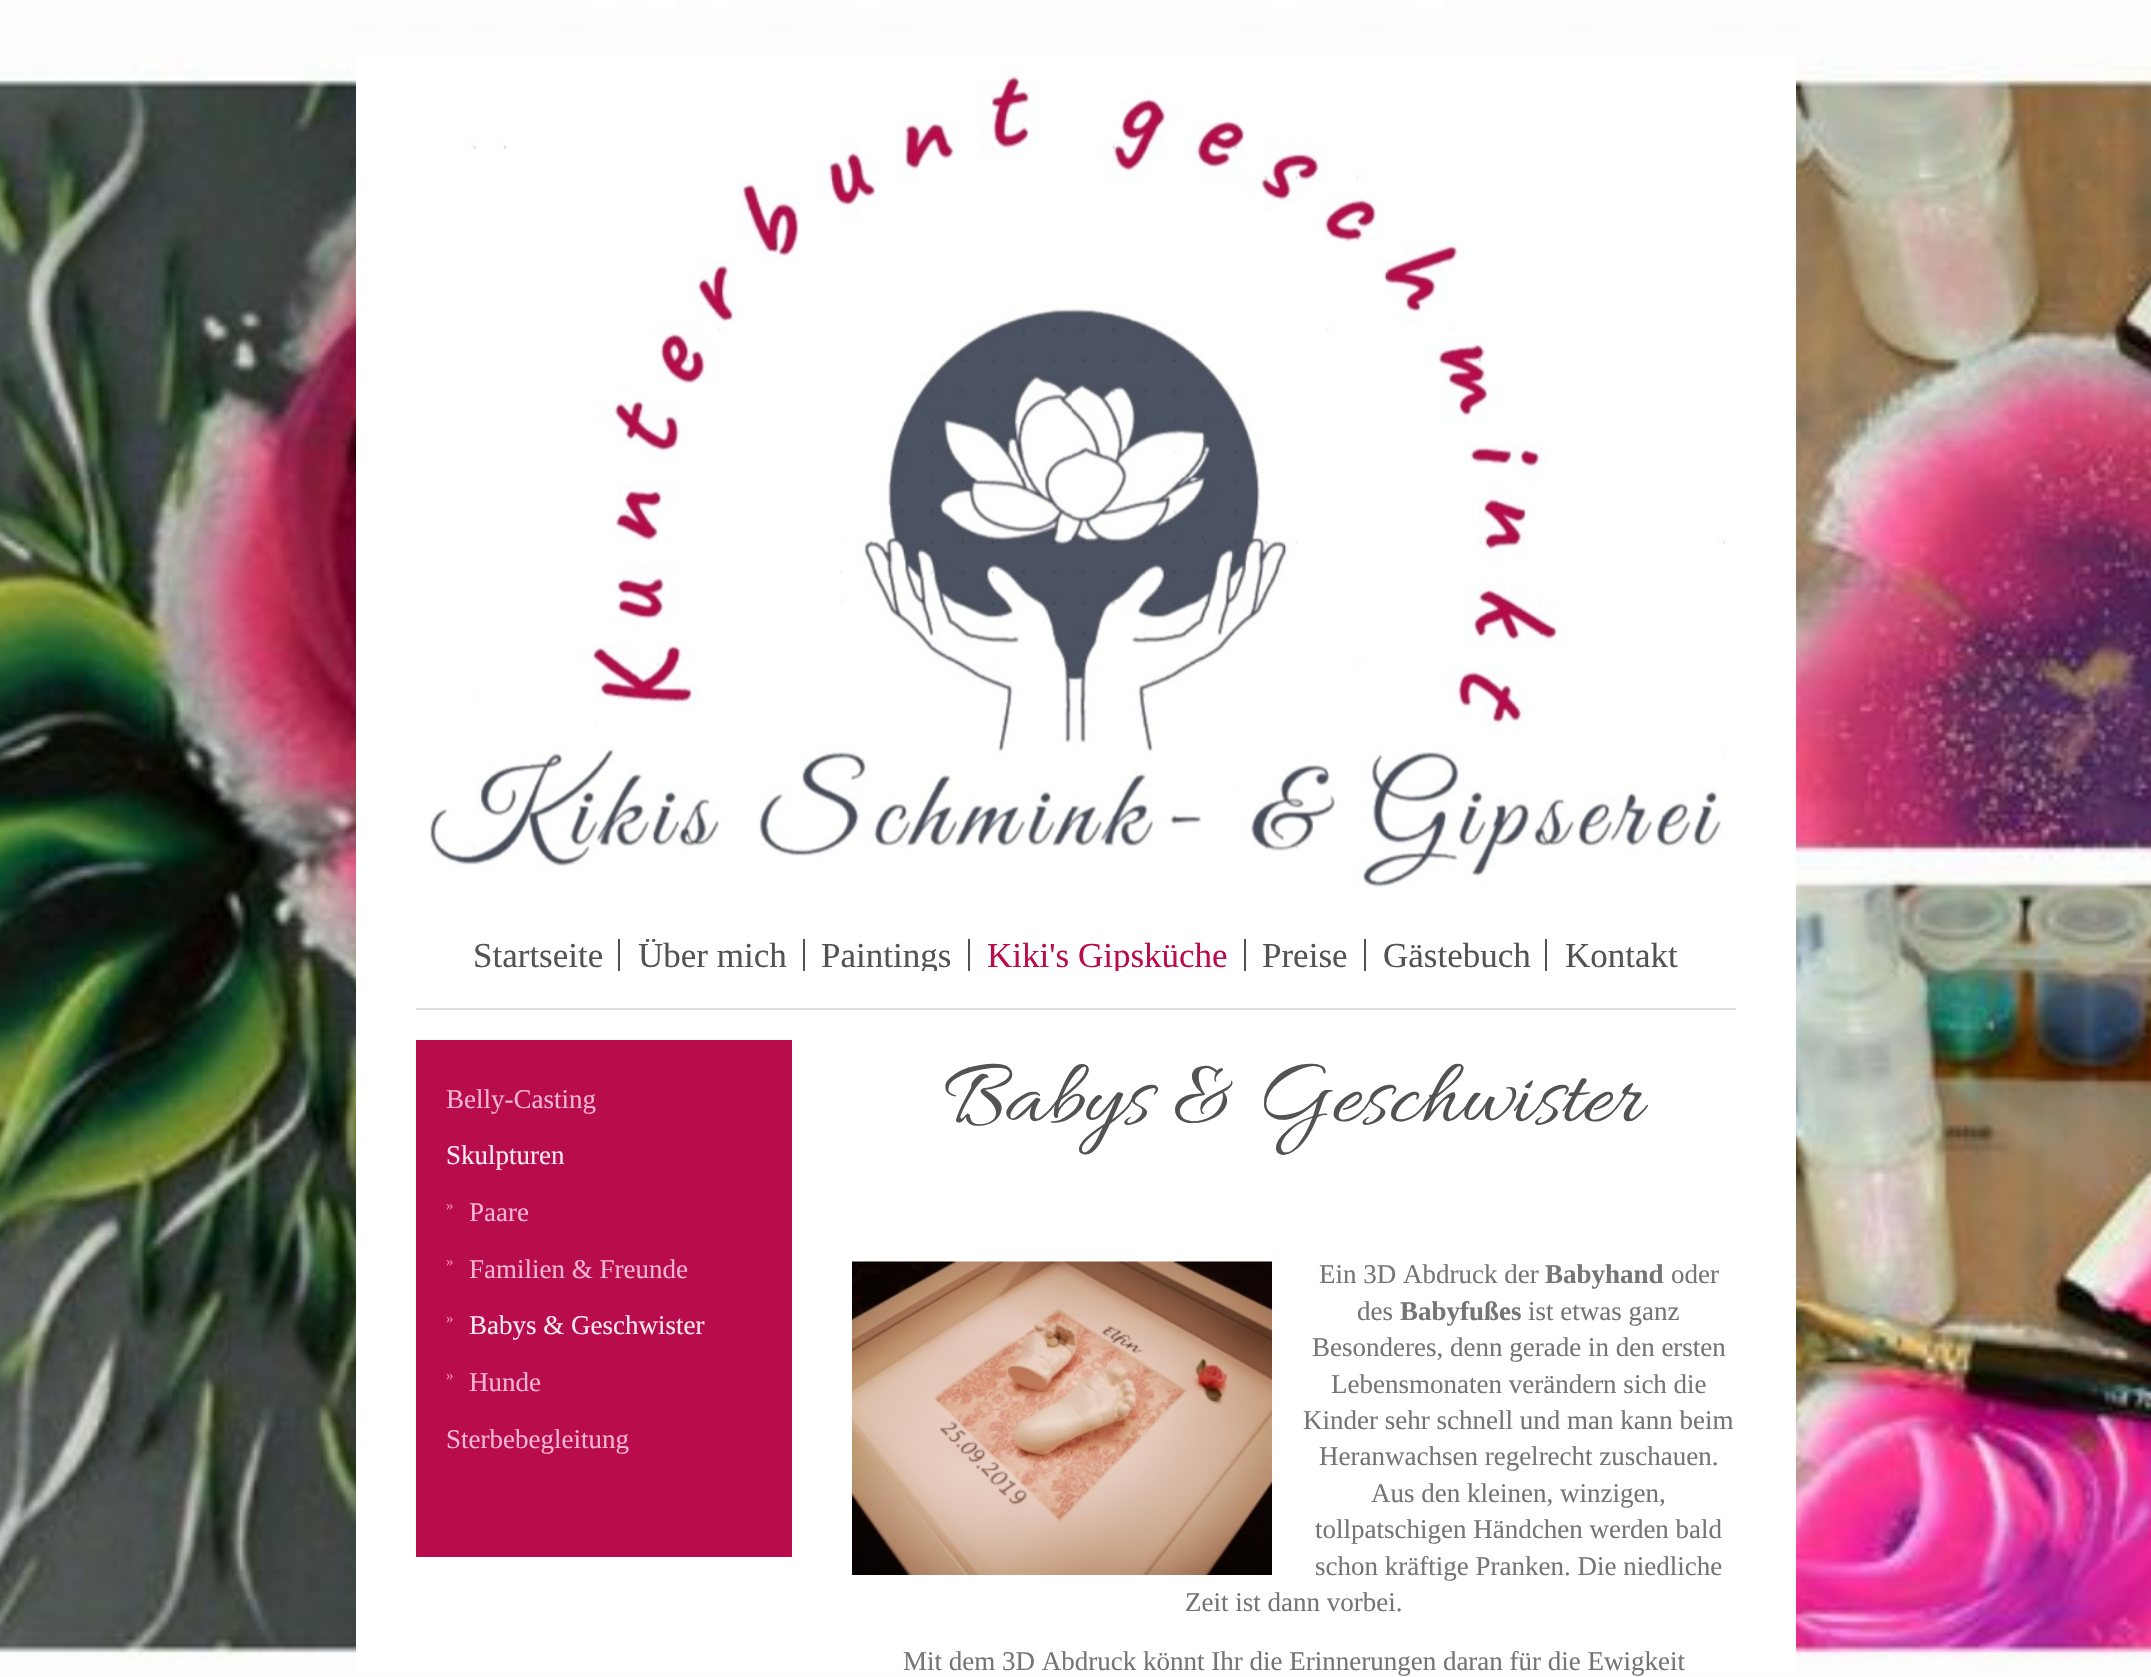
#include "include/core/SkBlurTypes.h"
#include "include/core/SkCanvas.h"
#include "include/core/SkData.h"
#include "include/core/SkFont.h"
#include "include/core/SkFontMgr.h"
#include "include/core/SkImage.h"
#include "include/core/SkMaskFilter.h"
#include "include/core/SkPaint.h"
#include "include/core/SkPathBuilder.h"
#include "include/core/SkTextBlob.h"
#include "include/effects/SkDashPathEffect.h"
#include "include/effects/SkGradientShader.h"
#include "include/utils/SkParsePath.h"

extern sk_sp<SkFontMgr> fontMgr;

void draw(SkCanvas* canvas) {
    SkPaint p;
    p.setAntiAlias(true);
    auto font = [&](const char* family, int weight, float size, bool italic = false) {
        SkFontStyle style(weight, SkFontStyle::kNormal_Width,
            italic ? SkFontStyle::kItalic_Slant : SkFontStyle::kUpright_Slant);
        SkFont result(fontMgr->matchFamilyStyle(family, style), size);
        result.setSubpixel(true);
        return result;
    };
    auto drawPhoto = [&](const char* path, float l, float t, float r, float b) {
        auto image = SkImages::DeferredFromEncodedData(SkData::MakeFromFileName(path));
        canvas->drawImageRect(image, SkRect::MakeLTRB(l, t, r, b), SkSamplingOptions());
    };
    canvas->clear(0xFFFFFFFF);
    drawPhoto("media/1.png", 0, 0, 2151, 1677);
    p.setColor(0xFFFFFFFF);
    canvas->drawRect(SkRect::MakeLTRB(356, 54, 1796, 1671), p);
    drawPhoto("media/2.png", 430, 66, 1727, 888);
    p.setColor(0xFFDDDDDD);
    canvas->drawRect(SkRect::MakeLTRB(416, 1008, 1736, 1010), p);
    p.setColor(0xFF535353);
    canvas->drawRect(SkRect::MakeLTRB(618, 939, 620, 971), p);
    auto font1 = font("Liberation Serif", 400, 35);
    canvas->drawString("Startseite", 473, 967, font1, p);
    canvas->drawRect(SkRect::MakeLTRB(803, 939, 805, 971), p);
    canvas->save();
    canvas->clipRect(SkRect::MakeLTRB(623, 939, 803, 971));
    canvas->drawString("Über mich", 638, 967, font1, p);
    canvas->restore();
    canvas->drawRect(SkRect::MakeLTRB(968, 939, 970, 971), p);
    canvas->save();
    canvas->clipRect(SkRect::MakeLTRB(807, 939, 968, 971));
    canvas->drawString("Paintings", 821, 967, font1, p);
    canvas->restore();
    canvas->drawRect(SkRect::MakeLTRB(1244, 939, 1246, 971), p);
    canvas->save();
    canvas->clipRect(SkRect::MakeLTRB(972, 939, 1244, 971));
    p.setColor(0xFFB80C4D);
    canvas->drawString("Kiki's Gipsküche", 987, 967, font1, p);
    canvas->restore();
    p.setColor(0xFF535353);
    canvas->drawRect(SkRect::MakeLTRB(1364, 939, 1366, 971), p);
    canvas->drawString("Preise", 1262, 967, font1, p);
    canvas->drawRect(SkRect::MakeLTRB(1545, 939, 1547, 971), p);
    canvas->drawString("Gästebuch", 1383, 967, font1, p);
    canvas->drawString("Kontakt", 1565, 967, font1, p);
    p.setColor(0xFFB80C4D);
    canvas->drawRect(SkRect::MakeLTRB(416, 1040, 792, 1557), p);
    auto font2 = font("Liberation Serif", 400, 27);
    p.setColor(0xFFF5B5CD);
    canvas->drawString("Belly-Casting", 446, 1108, font2, p);
    p.setColor(0xFFF8E7ED);
    canvas->drawString("Skulpturen", 446, 1164, font2, p);
    auto font3 = font("Liberation Serif", 400, 15);
    p.setColor(0xFFF28AB1);
    canvas->drawString("»", 446, 1210, font3, p);
    p.setColor(0xFFF5B5CD);
    canvas->drawString("Paare", 469, 1221, font2, p);
    p.setColor(0xFFF28AB1);
    canvas->drawString("»", 446, 1266, font3, p);
    p.setColor(0xFFF5B5CD);
    canvas->drawString("Familien & Freunde", 469, 1278, font2, p);
    p.setColor(0xFFF28AB1);
    canvas->drawString("»", 446, 1323, font3, p);
    p.setColor(0xFFF8E7ED);
    canvas->drawString("Babys & Geschwister", 469, 1334, font2, p);
    p.setColor(0xFFF28AB1);
    canvas->drawString("»", 446, 1380, font3, p);
    p.setColor(0xFFF5B5CD);
    canvas->drawString("Hunde", 469, 1391, font2, p);
    canvas->drawString("Sterbebegleitung", 446, 1448, font2, p);
    auto font4 = font("Allura", 400, 93.5f);
    p.setColor(0xFF535353);
    canvas->drawString("Babys & Geschwister", 944, 1119, font4, p);
    drawPhoto("media/3.png", 852, 1261, 1272, 1575);
    p.setColor(0xFF757575);
    canvas->drawString("Ein 3D Abdruck der", 1319, 1283, font2, p);
    auto font5 = font("Liberation Serif", 700, 27);
    canvas->drawString("Babyhand", 1545, 1283, font5, p);
    canvas->drawString("oder", 1671, 1283, font2, p);
    canvas->drawString("des", 1357, 1320, font2, p);
    canvas->drawString("Babyfußes", 1400, 1320, font5, p);
    {
        const struct { const char* s; float x, y; } items[] = {
            {"ist etwas ganz", 1528, 1320},
            {"Besonderes, denn gerade in den ersten", 1312, 1356},
            {"Lebensmonaten verändern sich die", 1331, 1393},
            {"Kinder sehr schnell und man kann beim", 1303, 1429},
            {"Heranwachsen regelrecht zuschauen.", 1319, 1465},
            {"Aus den kleinen, winzigen,", 1371, 1502},
            {"tollpatschigen Händchen werden bald", 1315, 1538},
            {"schon kräftige Pranken. Die niedliche", 1315, 1575},
            {"Zeit ist dann vorbei.", 1185, 1611},
            {"Mit dem 3D Abdruck könnt Ihr die Erinnerungen daran für die Ewigkeit", 903, 1670},
        };
        for (auto [s, x, y] : items) {
            canvas->drawString(s, x, y, font2, p);
        }
    }
}
